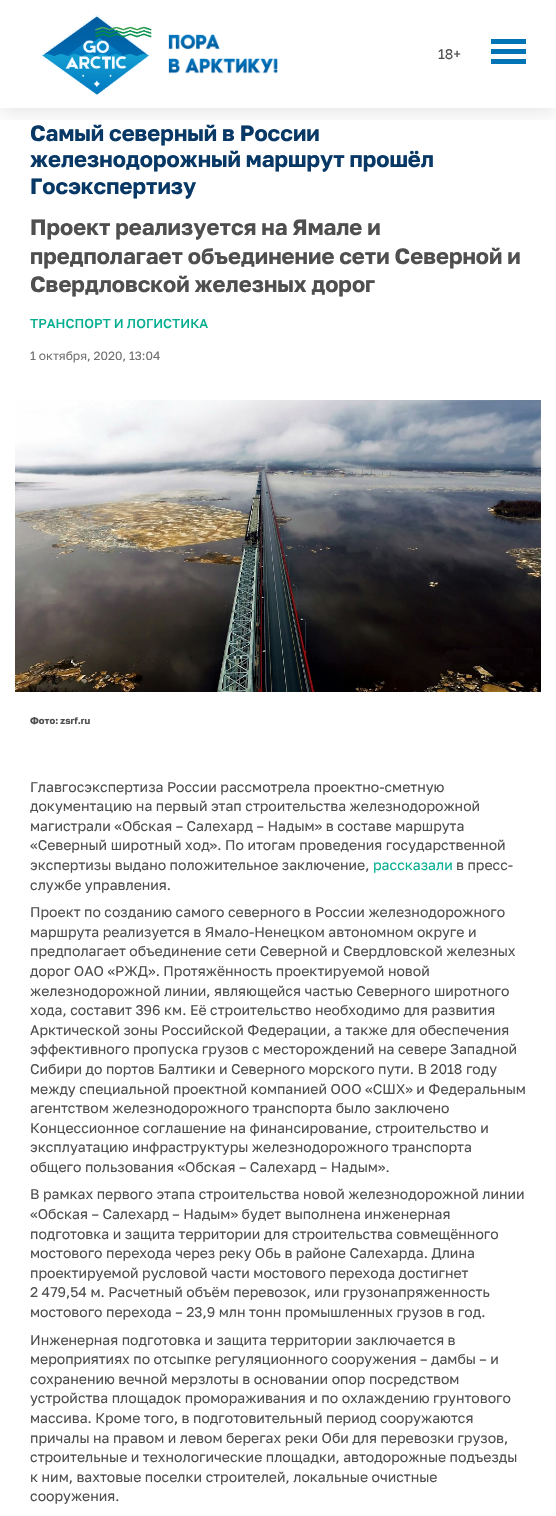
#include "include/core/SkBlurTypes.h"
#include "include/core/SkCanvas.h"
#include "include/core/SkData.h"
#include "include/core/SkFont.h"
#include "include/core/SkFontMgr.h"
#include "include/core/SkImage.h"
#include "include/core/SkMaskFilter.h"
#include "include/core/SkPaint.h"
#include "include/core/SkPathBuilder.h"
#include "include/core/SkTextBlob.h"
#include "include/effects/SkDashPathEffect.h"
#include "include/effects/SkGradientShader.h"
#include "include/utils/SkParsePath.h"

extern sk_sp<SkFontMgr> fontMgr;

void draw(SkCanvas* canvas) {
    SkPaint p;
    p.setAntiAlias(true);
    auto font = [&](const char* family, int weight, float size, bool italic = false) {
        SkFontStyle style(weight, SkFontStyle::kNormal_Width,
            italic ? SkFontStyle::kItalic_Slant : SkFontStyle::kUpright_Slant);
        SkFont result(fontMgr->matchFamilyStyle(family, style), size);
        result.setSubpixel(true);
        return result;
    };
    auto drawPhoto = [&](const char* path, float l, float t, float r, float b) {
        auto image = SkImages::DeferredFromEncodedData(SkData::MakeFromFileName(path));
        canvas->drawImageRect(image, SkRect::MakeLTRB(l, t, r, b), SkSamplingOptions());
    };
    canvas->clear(0xFFFFFFFF);
    canvas->save();
    canvas->clipRect(SkRect::MakeLTRB(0, 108, 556, 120));
    p.setColor(0x1A000000);
    p.setMaskFilter(SkMaskFilter::MakeBlur(kNormal_SkBlurStyle, 10));
    canvas->drawRect(SkRect::MakeLTRB(0, 4, 556, 112), p);
    p.setMaskFilter(nullptr);
    canvas->restore();
    drawPhoto("media/1.png", 40, 15, 152, 96);
    drawPhoto("media/2.png", 168, 34, 278, 74);
    auto font1 = font("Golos", 400, 14);
    p.setColor(0xFF4F4F4F);
    canvas->drawString("18+", 438, 59, font1, p);
    drawPhoto("media/3.png", 491, 39, 526, 64);
    auto font2 = font("Golos", 700, 22);
    p.setColor(0xFF073866);
    {
        const struct { const char* s; float x, y; } items[] = {
            {"Самый северный в России", 30, 141},
            {"железнодорожный маршрут прошёл", 30, 167},
            {"Госэкспертизу", 30, 194},
        };
        for (auto [s, x, y] : items) {
            canvas->drawString(s, x, y, font2, p);
        }
    }
    p.setColor(0xFF4F4F4F);
    {
        const struct { const char* s; float x, y; } items[] = {
            {"Проект реализуется на Ямале и", 30, 235},
            {"предполагает объединение сети Северной и", 30, 264},
            {"Свердловской железных дорог", 30, 292},
        };
        for (auto [s, x, y] : items) {
            canvas->drawString(s, x, y, font2, p);
        }
    }
    auto font3 = font("Golos", 500, 13);
    p.setColor(0xFF05AE90);
    canvas->drawString("ТРАНСПОРТ И ЛОГИСТИКА", 30, 328, font3, p);
    auto font4 = font("Golos", 400, 12);
    p.setColor(0xFF707070);
    canvas->drawString("1 октября, 2020, 13:04", 30, 360, font4, p);
    drawPhoto("media/4.png", 15, 400, 541, 692);
    auto font5 = font("Golos", 700, 9.5f);
    p.setColor(0xFF4F4F4F);
    canvas->drawString("Фото: zsrf.ru", 30, 724, font5, p);
    {
        const struct { const char* s; float x, y; } items[] = {
            {"Главгосэкспертиза России рассмотрела проектно-сметную", 30, 792},
            {"документацию на первый этап строительства железнодорожной", 30, 811},
            {"магистрали «Обская – Салехард – Надым» в составе маршрута", 30, 831},
            {"«Северный широтный ход». По итогам проведения государственной", 30, 850},
            {"экспертизы выдано положительное заключение,", 30, 870},
        };
        for (auto [s, x, y] : items) {
            canvas->drawString(s, x, y, font1, p);
        }
    }
    p.setColor(0xFF05AE90);
    canvas->drawString("рассказали", 373, 870, font1, p);
    p.setColor(0xFF4F4F4F);
    {
        const struct { const char* s; float x, y; } items[] = {
            {"в пресс-", 456, 870},
            {"службе управления.", 30, 890},
            {"Проект по созданию самого северного в России железнодорожного", 30, 917},
            {"маршрута реализуется в Ямало-Ненецком автономном округе и", 30, 937},
            {"предполагает объединение сети Северной и Свердловской железных", 30, 956},
            {"дорог ОАО «РЖД». Протяжённость проектируемой новой", 30, 976},
            {"железнодорожной линии, являющейся частью Северного широтного", 30, 996},
            {"хода, составит 396 км. Её строительство необходимо для развития", 30, 1015},
            {"Арктической зоны Российской Федерации, а также для обеспечения", 30, 1035},
            {"эффективного пропуска грузов с месторождений на севере Западной", 30, 1054},
            {"Сибири до портов Балтики и Северного морского пути. В 2018 году", 30, 1074},
            {"между специальной проектной компанией ООО «СШХ» и Федеральным", 30, 1094},
            {"агентством железнодорожного транспорта было заключено", 30, 1113},
            {"Концессионное соглашение на финансирование, строительство и", 30, 1133},
            {"эксплуатацию инфраструктуры железнодорожного транспорта", 30, 1152},
            {"общего пользования «Обская – Салехард – Надым».", 30, 1172},
            {"В рамках первого этапа строительства новой железнодорожной линии", 30, 1199},
            {"«Обская – Салехард – Надым» будет выполнена инженерная", 30, 1219},
            {"подготовка и защита территории для строительства совмещённого", 30, 1239},
            {"мостового перехода через реку Обь в районе Салехарда. Длина", 30, 1258},
            {"проектируемой русловой части мостового перехода достигнет", 30, 1278},
            {"2 479,54 м. Расчетный объём перевозок, или грузонапряженность", 30, 1297},
            {"мостового перехода – 23,9 млн тонн промышленных грузов в год.", 30, 1317},
            {"Инженерная подготовка и защита территории заключается в", 30, 1345},
            {"мероприятиях по отсыпке регуляционного сооружения – дамбы – и", 30, 1364},
            {"сохранению вечной мерзлоты в основании опор посредством", 30, 1384},
            {"устройства площадок промораживания и по охлаждению грунтового", 30, 1403},
            {"массива. Кроме того, в подготовительный период сооружаются", 30, 1423},
            {"причалы на правом и левом берегах реки Оби для перевозки грузов,", 30, 1443},
            {"строительные и технологические площадки, автодорожные подъезды", 30, 1462},
            {"к ним, вахтовые поселки строителей, локальные очистные", 30, 1482},
            {"сооружения.", 30, 1501},
        };
        for (auto [s, x, y] : items) {
            canvas->drawString(s, x, y, font1, p);
        }
    }
}
